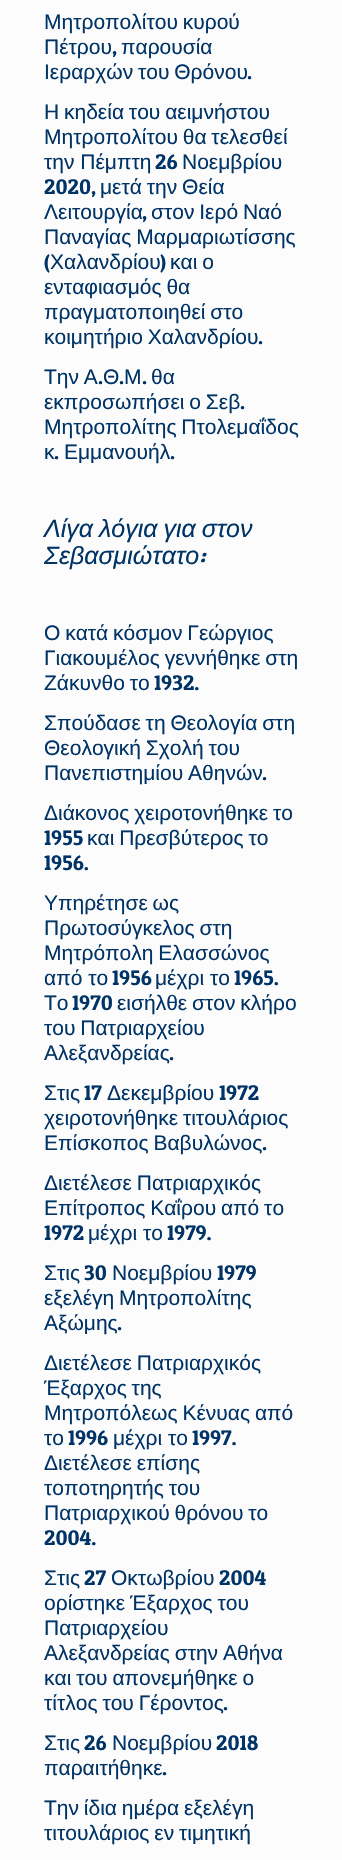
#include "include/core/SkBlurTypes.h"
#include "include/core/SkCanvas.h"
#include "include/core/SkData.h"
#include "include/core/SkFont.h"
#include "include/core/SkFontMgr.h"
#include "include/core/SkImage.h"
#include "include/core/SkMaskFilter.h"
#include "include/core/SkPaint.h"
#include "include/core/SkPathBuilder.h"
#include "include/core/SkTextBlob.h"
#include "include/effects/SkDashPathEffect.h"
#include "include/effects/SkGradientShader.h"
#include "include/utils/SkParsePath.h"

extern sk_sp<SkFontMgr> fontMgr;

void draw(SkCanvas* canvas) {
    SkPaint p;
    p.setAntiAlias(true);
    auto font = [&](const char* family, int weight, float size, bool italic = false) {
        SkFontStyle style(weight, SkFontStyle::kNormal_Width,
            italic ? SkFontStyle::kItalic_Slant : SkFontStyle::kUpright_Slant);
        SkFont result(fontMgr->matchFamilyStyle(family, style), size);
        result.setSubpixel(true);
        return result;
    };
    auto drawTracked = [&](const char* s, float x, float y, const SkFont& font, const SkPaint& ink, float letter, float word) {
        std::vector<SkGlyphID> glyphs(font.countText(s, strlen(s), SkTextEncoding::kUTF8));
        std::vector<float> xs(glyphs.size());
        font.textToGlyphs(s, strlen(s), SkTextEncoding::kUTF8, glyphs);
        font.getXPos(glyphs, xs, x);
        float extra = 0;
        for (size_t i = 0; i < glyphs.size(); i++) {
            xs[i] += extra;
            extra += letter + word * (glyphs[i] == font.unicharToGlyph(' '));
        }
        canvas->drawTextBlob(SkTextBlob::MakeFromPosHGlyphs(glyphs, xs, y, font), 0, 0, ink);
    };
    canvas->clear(0xFFFCFCFC);
    auto font1 = font("Liberation Sans", 400, 21);
    p.setColor(0xFF003366);
    drawTracked("Μητροπολίτου κυρού", 44, 29, font1, p, 0, -1);
    canvas->drawString("Πέτρου", 44, 54, font1, p);
    auto font2 = font("Patua One", 400, 21);
    canvas->drawString(",", 112, 54, font2, p);
    canvas->drawString("παρουσία", 121, 54, font1, p);
    drawTracked("Ιεραρχών του Θρόνου", 44, 79, font1, p, 0, -1);
    canvas->drawString(".", 247, 79, font2, p);
    drawTracked("Η κηδεία του αειμνήστου", 44, 119, font1, p, 0, -1);
    drawTracked("Μητροπολίτου θα τελεσθεί", 44, 144, font1, p, 0, -1);
    canvas->drawString("την Πέμπτη", 44, 169, font1, p);
    canvas->drawString("26", 155, 169, font2, p);
    canvas->drawString("Νοεμβρίου", 182, 169, font1, p);
    canvas->drawString("2020,", 44, 194, font2, p);
    drawTracked("μετά την Θεία", 100, 194, font1, p, 0, -1);
    canvas->drawString("Λειτουργία", 44, 219, font1, p);
    canvas->drawString(",", 142, 219, font2, p);
    drawTracked("στον Ιερό Ναό", 151, 219, font1, p, 0, -1);
    drawTracked("Παναγίας Μαρμαριωτίσσης", 44, 244, font1, p, 0, -1);
    canvas->drawString("(", 44, 269, font2, p);
    canvas->drawString("Χαλανδρίου", 50, 269, font1, p);
    canvas->drawString(")", 160, 269, font2, p);
    {
        const struct { const char* s; float x, y; } items[] = {
            {"και ο", 170, 269},
            {"ενταφιασμός θα", 44, 294},
            {"πραγματοποιηθεί στο", 44, 319},
            {"κοιμητήριο Χαλανδρίου", 44, 344},
        };
        for (auto [s, x, y] : items) {
            drawTracked(s, x, y, font1, p, 0, -1);
        }
    }
    canvas->drawString(".", 258, 344, font2, p);
    drawTracked("Την Α", 44, 384, font1, p, 0, -1);
    canvas->drawString(".", 98, 384, font2, p);
    canvas->drawString("Θ", 103, 384, font1, p);
    canvas->drawString(".", 119, 384, font2, p);
    canvas->drawString("Μ", 124, 384, font1, p);
    canvas->drawString(".", 142, 384, font2, p);
    canvas->drawString("θα", 151, 384, font1, p);
    drawTracked("εκπροσωπήσει ο Σεβ", 44, 409, font1, p, 0, -1);
    canvas->drawString(".", 240, 409, font2, p);
    drawTracked("Μητροπολίτης Πτολεμαΐδος", 44, 434, font1, p, 0, -1);
    canvas->drawString("κ", 44, 459, font1, p);
    canvas->drawString(".", 54, 459, font2, p);
    canvas->drawString("Εμμανουήλ", 64, 459, font1, p);
    canvas->drawString(".", 170, 459, font2, p);
    auto font3 = font("Liberation Sans", 400, 25, true);
    drawTracked("Λίγα λόγια για στον", 44, 537, font3, p, 0, -1);
    canvas->drawString("Σεβασμιώτατο", 44, 564, font3, p);
    auto font4 = font("Patua One", 400, 25, true);
    canvas->drawString(":", 199, 564, font4, p);
    {
        const struct { const char* s; float x, y; } items[] = {
            {"Ο κατά κόσμον Γεώργιος", 44, 640},
            {"Γιακουμέλος γεννήθηκε στη", 44, 665},
            {"Ζάκυνθο το", 44, 690},
        };
        for (auto [s, x, y] : items) {
            drawTracked(s, x, y, font1, p, 0, -1);
        }
    }
    canvas->drawString("1932.", 154, 690, font2, p);
    {
        const struct { const char* s; float x, y; } items[] = {
            {"Σπούδασε τη Θεολογία στη", 44, 730},
            {"Θεολογική Σχολή του", 44, 755},
            {"Πανεπιστημίου Αθηνών", 44, 780},
        };
        for (auto [s, x, y] : items) {
            drawTracked(s, x, y, font1, p, 0, -1);
        }
    }
    canvas->drawString(".", 262, 780, font2, p);
    drawTracked("Διάκονος χειροτονήθηκε το", 44, 820, font1, p, 0, -1);
    canvas->drawString("1955", 44, 845, font2, p);
    drawTracked("και Πρεσβύτερος το", 87, 845, font1, p, 0, -1);
    canvas->drawString("1956.", 44, 870, font2, p);
    {
        const struct { const char* s; float x, y; } items[] = {
            {"Υπηρέτησε ως", 44, 910},
            {"Πρωτοσύγκελος στη", 44, 935},
            {"Μητρόπολη Ελασσώνος", 44, 960},
        };
        for (auto [s, x, y] : items) {
            drawTracked(s, x, y, font1, p, 0, -1);
        }
    }
    canvas->drawString("από το", 44, 985, font1, p);
    canvas->drawString("1956", 112, 985, font2, p);
    canvas->drawString("μέχρι το", 155, 985, font1, p);
    canvas->drawString("1965.", 234, 985, font2, p);
    canvas->drawString("Το", 44, 1010, font1, p);
    canvas->drawString("1970", 72, 1010, font2, p);
    drawTracked("εισήλθε στον κλήρο", 117, 1010, font1, p, 0, -1);
    drawTracked("του Πατριαρχείου", 44, 1035, font1, p, 0, -1);
    canvas->drawString("Αλεξανδρείας", 44, 1060, font1, p);
    canvas->drawString(".", 169, 1060, font2, p);
    canvas->drawString("Στις", 44, 1100, font1, p);
    canvas->drawString("17", 84, 1100, font2, p);
    canvas->drawString("Δεκεμβρίου", 107, 1100, font1, p);
    canvas->drawString("1972", 219, 1100, font2, p);
    drawTracked("χειροτονήθηκε τιτουλάριος", 44, 1125, font1, p, 0, -1);
    drawTracked("Επίσκοπος Βαβυλώνος", 44, 1150, font1, p, 0, -1);
    canvas->drawString(".", 262, 1150, font2, p);
    drawTracked("Διετέλεσε Πατριαρχικός", 44, 1190, font1, p, 0, -1);
    drawTracked("Επίτροπος Καΐρου από το", 44, 1215, font1, p, 0, -1);
    canvas->drawString("1972", 44, 1240, font2, p);
    canvas->drawString("μέχρι το", 88, 1240, font1, p);
    canvas->drawString("1979.", 167, 1240, font2, p);
    canvas->drawString("Στις", 44, 1280, font1, p);
    canvas->drawString("30", 84, 1280, font2, p);
    canvas->drawString("Νοεμβρίου", 112, 1280, font1, p);
    canvas->drawString("1979", 217, 1280, font2, p);
    drawTracked("εξελέγη Μητροπολίτης", 44, 1305, font1, p, 0, -1);
    canvas->drawString("Αξώμης", 44, 1330, font1, p);
    canvas->drawString(".", 117, 1330, font2, p);
    {
        const struct { const char* s; float x, y; } items[] = {
            {"Διετέλεσε Πατριαρχικός", 44, 1370},
            {"Έξαρχος της", 44, 1395},
            {"Μητροπόλεως Κένυας από", 44, 1420},
        };
        for (auto [s, x, y] : items) {
            drawTracked(s, x, y, font1, p, 0, -1);
        }
    }
    canvas->drawString("το", 44, 1445, font1, p);
    canvas->drawString("1996", 68, 1445, font2, p);
    canvas->drawString("μέχρι το", 113, 1445, font1, p);
    canvas->drawString("1997.", 192, 1445, font2, p);
    {
        const struct { const char* s; float x, y; } items[] = {
            {"Διετέλεσε επίσης", 44, 1470},
            {"τοποτηρητής του", 44, 1495},
            {"Πατριαρχικού θρόνου το", 44, 1520},
        };
        for (auto [s, x, y] : items) {
            drawTracked(s, x, y, font1, p, 0, -1);
        }
    }
    canvas->drawString("2004.", 44, 1545, font2, p);
    canvas->drawString("Στις", 44, 1585, font1, p);
    canvas->drawString("27", 84, 1585, font2, p);
    canvas->drawString("Οκτωβρίου", 111, 1585, font1, p);
    canvas->drawString("2004", 219, 1585, font2, p);
    drawTracked("ορίστηκε Έξαρχος του", 44, 1610, font1, p, 0, -1);
    canvas->drawString("Πατριαρχείου", 44, 1635, font1, p);
    {
        const struct { const char* s; float x, y; } items[] = {
            {"Αλεξανδρείας στην Αθήνα", 44, 1660},
            {"και του απονεμήθηκε ο", 44, 1685},
            {"τίτλος του Γέροντος", 44, 1710},
        };
        for (auto [s, x, y] : items) {
            drawTracked(s, x, y, font1, p, 0, -1);
        }
    }
    canvas->drawString(".", 223, 1710, font2, p);
    canvas->drawString("Στις", 44, 1750, font1, p);
    canvas->drawString("26", 84, 1750, font2, p);
    canvas->drawString("Νοεμβρίου", 112, 1750, font1, p);
    canvas->drawString("2018", 216, 1750, font2, p);
    canvas->drawString("παραιτήθηκε", 44, 1775, font1, p);
    canvas->drawString(".", 162, 1775, font2, p);
    drawTracked("Την ίδια ημέρα εξελέγη", 44, 1815, font1, p, 0, -1);
    drawTracked("τιτουλάριος εν τιμητική", 44, 1840, font1, p, 0, -1);
}
